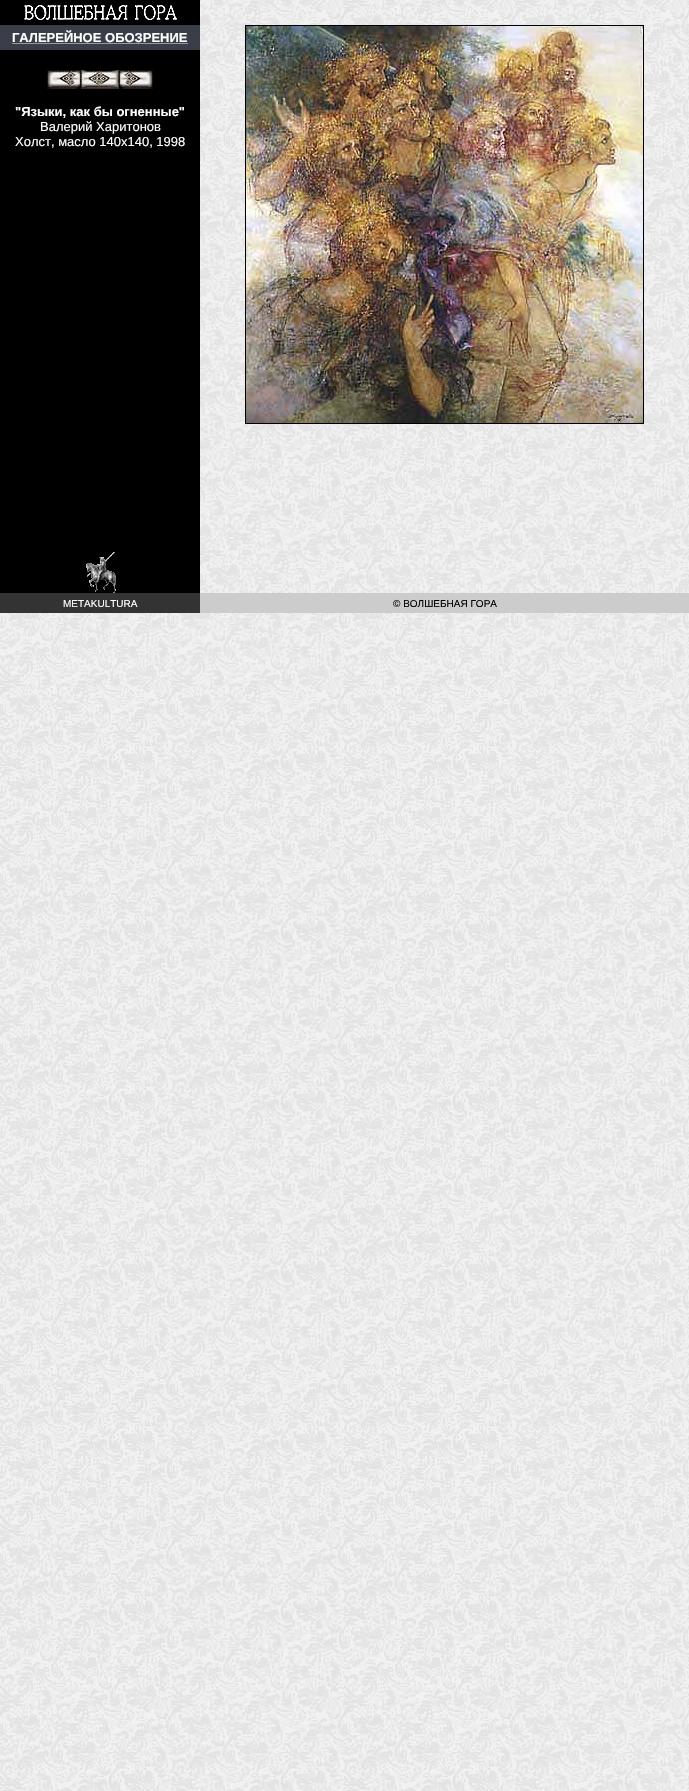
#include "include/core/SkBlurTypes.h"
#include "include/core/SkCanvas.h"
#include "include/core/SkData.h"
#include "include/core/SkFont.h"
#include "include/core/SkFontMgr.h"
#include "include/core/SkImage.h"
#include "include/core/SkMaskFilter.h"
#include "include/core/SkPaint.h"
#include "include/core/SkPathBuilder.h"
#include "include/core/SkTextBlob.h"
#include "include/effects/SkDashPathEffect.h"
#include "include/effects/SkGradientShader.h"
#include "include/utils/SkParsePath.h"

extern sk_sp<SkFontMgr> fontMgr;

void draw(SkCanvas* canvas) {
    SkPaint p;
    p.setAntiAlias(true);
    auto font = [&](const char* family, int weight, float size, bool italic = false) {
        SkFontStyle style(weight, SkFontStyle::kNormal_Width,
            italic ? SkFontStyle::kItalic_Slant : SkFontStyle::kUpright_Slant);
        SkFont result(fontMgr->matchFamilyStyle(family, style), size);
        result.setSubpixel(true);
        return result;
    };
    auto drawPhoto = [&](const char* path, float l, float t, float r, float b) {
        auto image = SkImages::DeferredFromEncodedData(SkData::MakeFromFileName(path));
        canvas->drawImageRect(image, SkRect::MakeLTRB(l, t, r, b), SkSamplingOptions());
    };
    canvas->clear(0xFFFFFFFF);
    drawPhoto("media/1.png", 0, 0, 689, 1791);
    p.setColor(0xFF000000);
    canvas->drawRect(SkRect::MakeLTRB(0, 0, 200, 25), p);
    drawPhoto("media/2.png", 24, 5, 177, 21);
    canvas->drawRect(SkRect::MakeLTRB(0, 50, 200, 593), p);
    p.setColor(0xFF3A3E49);
    canvas->drawRect(SkRect::MakeLTRB(0, 25, 200, 50), p);
    auto font1 = font("Liberation Sans", 700, 13);
    p.setColor(0xFFFFFFFF);
    canvas->drawString("ГАЛЕРЕЙНОЕ ОБОЗРЕНИЕ", 12, 42, font1, p);
    p.setColor(0xFF999999);
    canvas->drawRect(SkRect::MakeLTRB(12, 43, 188, 44), p);
    drawPhoto("media/3.png", 47, 70, 81, 89);
    drawPhoto("media/4.png", 81, 70, 119, 89);
    drawPhoto("media/5.png", 119, 70, 153, 89);
    p.setColor(0xFFFFFFFF);
    canvas->drawString("\"Языки, как бы огненные\"", 15, 116, font1, p);
    auto font2 = font("Liberation Sans", 400, 13);
    canvas->drawString("Валерий Харитонов", 40, 131, font2, p);
    canvas->drawString("Холст, масло 140х140, 1998", 15, 146, font2, p);
    p.setStyle(SkPaint::kStroke_Style);
    p.setStrokeWidth(1);
    p.setColor(0xFF000000);
    canvas->drawRect(SkRect::MakeLTRB(245.5f, 25.5f, 643.5f, 423.5f), p);
    drawPhoto("media/6.png", 246, 26, 643, 423);
    drawPhoto("media/7.png", 86, 552, 116, 593);
    drawPhoto("media/8.png", 200, 550, 689, 593);
    p.setStyle(SkPaint::kFill_Style);
    p.setColor(0xFF333333);
    canvas->drawRect(SkRect::MakeLTRB(0, 593, 200, 613), p);
    auto font3 = font("Liberation Sans", 400, 10);
    p.setColor(0xFFFFFFFF);
    canvas->drawString("METAKULTURA", 63, 607, font3, p);
    p.setColor(0xFFCCCCCC);
    canvas->drawRect(SkRect::MakeLTRB(200, 593, 689, 613), p);
    p.setColor(0xFF000000);
    canvas->drawString("© ВОЛШЕБНАЯ ГОРА", 393, 607, font3, p);
}
